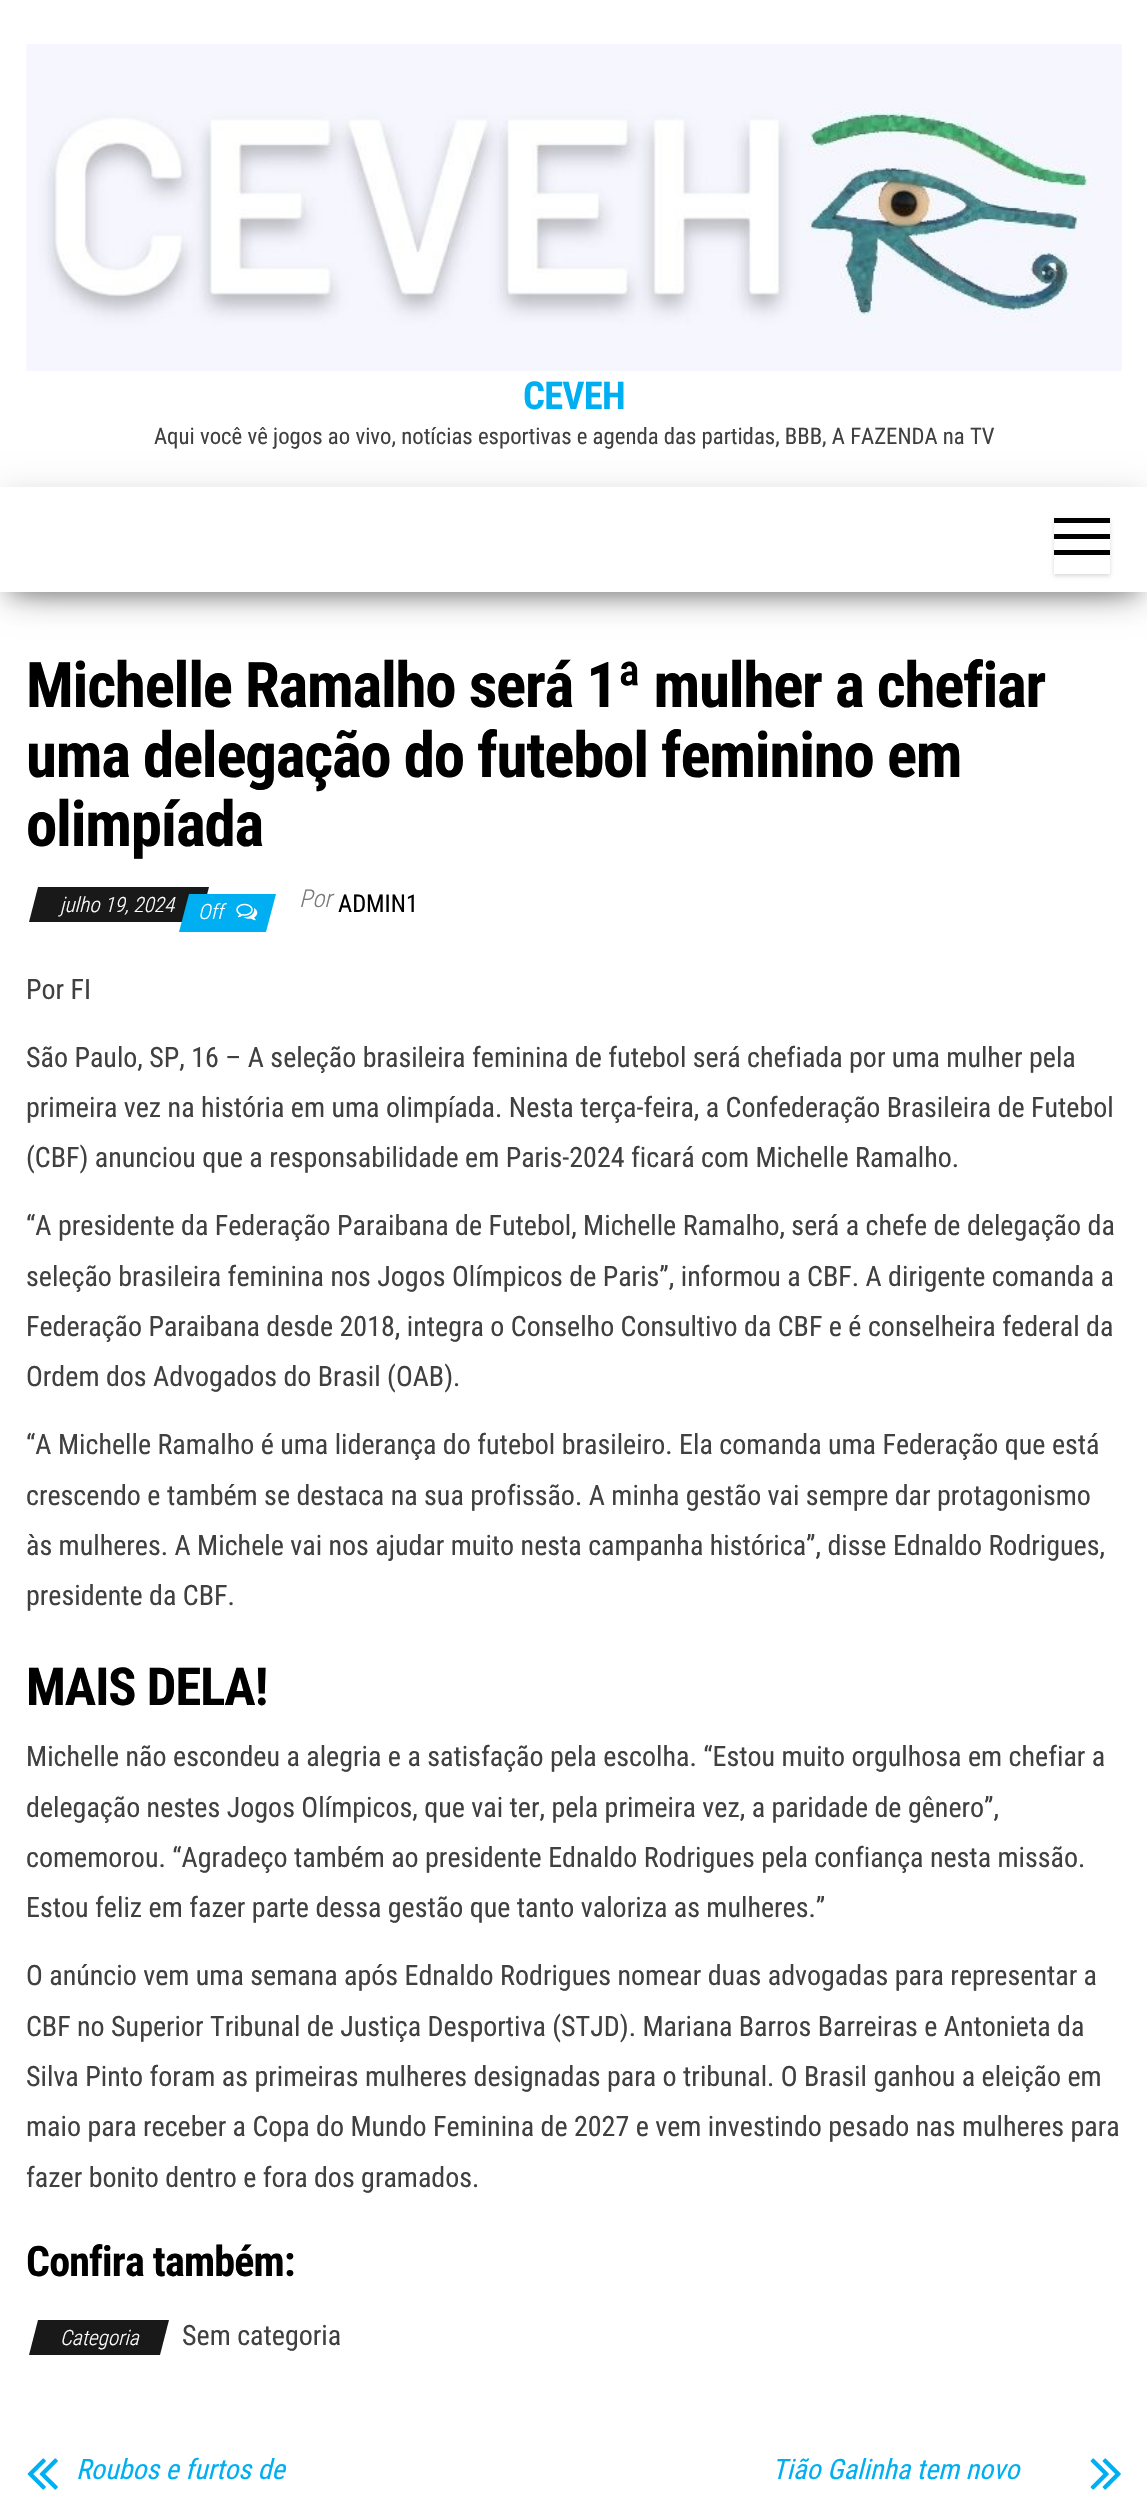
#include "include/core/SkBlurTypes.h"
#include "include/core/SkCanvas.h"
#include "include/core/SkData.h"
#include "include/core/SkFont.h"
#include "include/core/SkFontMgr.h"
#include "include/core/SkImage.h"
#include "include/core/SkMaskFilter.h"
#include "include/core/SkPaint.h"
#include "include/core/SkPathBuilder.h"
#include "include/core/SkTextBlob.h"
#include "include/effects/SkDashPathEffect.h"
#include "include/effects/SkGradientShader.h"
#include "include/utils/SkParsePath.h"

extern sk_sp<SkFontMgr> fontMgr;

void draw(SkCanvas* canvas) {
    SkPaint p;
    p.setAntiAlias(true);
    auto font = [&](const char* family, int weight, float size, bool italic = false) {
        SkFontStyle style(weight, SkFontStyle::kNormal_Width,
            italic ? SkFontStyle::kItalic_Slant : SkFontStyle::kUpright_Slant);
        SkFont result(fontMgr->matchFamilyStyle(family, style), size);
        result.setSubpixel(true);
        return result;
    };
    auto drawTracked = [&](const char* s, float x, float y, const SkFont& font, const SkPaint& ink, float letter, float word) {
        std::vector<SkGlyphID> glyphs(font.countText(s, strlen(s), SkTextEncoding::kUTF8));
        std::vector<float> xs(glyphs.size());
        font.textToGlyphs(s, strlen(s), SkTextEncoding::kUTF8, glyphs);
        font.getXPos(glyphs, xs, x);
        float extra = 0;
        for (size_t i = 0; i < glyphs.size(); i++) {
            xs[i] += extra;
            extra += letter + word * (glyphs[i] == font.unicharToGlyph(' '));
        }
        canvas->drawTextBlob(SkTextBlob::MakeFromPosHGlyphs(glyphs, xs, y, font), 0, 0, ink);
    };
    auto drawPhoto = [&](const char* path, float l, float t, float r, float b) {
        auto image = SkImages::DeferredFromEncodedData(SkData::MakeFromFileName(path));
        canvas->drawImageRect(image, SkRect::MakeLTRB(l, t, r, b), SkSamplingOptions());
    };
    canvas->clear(0xFFFFFFFF);
    drawPhoto("media/1.png", 26, 44, 1122, 371);
    auto font1 = font("Roboto Condensed", 700, 38.5f);
    p.setColor(0xFF00AFF2);
    drawTracked("CEVEH", 523, 409, font1, p, -0.75f, 0);
    p.setColor(0x1F000000);
    p.setMaskFilter(SkMaskFilter::MakeBlur(kNormal_SkBlurStyle, 17.5f));
    canvas->drawRect(SkRect::MakeLTRB(0, 492, 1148, 597), p);
    p.setMaskFilter(nullptr);
    auto font2 = font("Roboto Condensed", 400, 22.75f);
    p.setColor(0xFF404040);
    canvas->drawString("Aqui você vê jogos ao vivo, notícias esportivas e agenda das partidas, BBB, A FAZENDA na TV", 154, 444, font2, p);
    p.setColor(0x33000000);
    p.setMaskFilter(SkMaskFilter::MakeBlur(kNormal_SkBlurStyle, 9));
    canvas->drawRect(SkRect::MakeLTRB(9, 509, 1139, 597), p);
    p.setMaskFilter(nullptr);
    p.setColor(0x6B000000);
    p.setMaskFilter(SkMaskFilter::MakeBlur(kNormal_SkBlurStyle, 17.5f));
    canvas->drawRect(SkRect::MakeLTRB(21, 525, 1127, 588), p);
    p.setMaskFilter(nullptr);
    p.setColor(0xFFFFFFFF);
    canvas->drawRect(SkRect::MakeLTRB(0, 487, 1147, 592), p);
    canvas->save();
    canvas->clipPath(SkPathBuilder(SkPathFillType::kEvenOdd).moveTo(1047, 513).lineTo(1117, 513).lineTo(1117, 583).lineTo(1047, 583).close().moveTo(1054, 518).lineTo(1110, 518).lineTo(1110, 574).lineTo(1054, 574).close().detach(), true);
    p.setColor(0x26000000);
    p.setMaskFilter(SkMaskFilter::MakeBlur(kNormal_SkBlurStyle, 2));
    canvas->drawRect(SkRect::MakeLTRB(1054, 520, 1110, 576), p);
    p.setMaskFilter(nullptr);
    canvas->restore();
    {
        const struct { float l, t, r, b; SkColor color; } items[] = {
            {1054, 518, 1110, 523, 0xFF000000},
            {1054, 534, 1110, 539, 0xFF000000},
            {1054, 550, 1110, 555, 0xFF000000},
        };
        for (auto [l, t, r, b, color] : items) {
            p.setColor(color);
            canvas->drawRect(SkRect::MakeLTRB(l, t, r, b), p);
        }
    }
    auto font3 = font("Roboto Condensed", 700, 63);
    {
        const struct { const char* s; float x, y; } items[] = {
            {"Michelle Ramalho será 1ª mulher a chefiar", 26, 707},
            {"uma delegação do futebol feminino em", 26, 777},
            {"olimpíada", 26, 846},
        };
        for (auto [s, x, y] : items) {
            drawTracked(s, x, y, font3, p, -1.25f, 0);
        }
    }
    p.setColor(0xFF191919);
    canvas->drawPath(SkPathBuilder().moveTo(38, 887).lineTo(209, 887).lineTo(200, 922).lineTo(29, 922).close().detach(), p);
    auto font4 = font("Roboto Condensed", 300, 21, true);
    p.setColor(0xFFFFFFFF);
    canvas->drawString("julho 19, 2024", 60, 912, font4, p);
    p.setColor(0xFF00AFF2);
    canvas->drawPath(SkPathBuilder().moveTo(189, 894).lineTo(276, 894).lineTo(266, 932).lineTo(179, 932).close().detach(), p);
    p.setColor(0xFFFFFFFF);
    canvas->drawString("Off", 198, 919, font4, p);
    drawPhoto("media/2.png", 236, 903, 258, 921);
    auto font5 = font("Roboto Condensed", 300, 24.5f, true);
    p.setColor(0xFF797979);
    canvas->drawString("Por", 299, 907, font5, p);
    auto font6 = font("Roboto Condensed", 400, 24.5f);
    p.setColor(0xFF000000);
    canvas->drawString("ADMIN1", 338, 912, font6, p);
    auto font7 = font("Roboto Condensed", 400, 28);
    p.setColor(0xFF404040);
    {
        const struct { const char* s; float x, y; } items[] = {
            {"Por FI", 26, 999},
            {"São Paulo, SP, 16 – A seleção brasileira feminina de futebol será chefiada por uma mulher pela", 26, 1067},
            {"primeira vez na história em uma olimpíada. Nesta terça-feira, a Confederação Brasileira de Futebol", 26, 1117},
            {"(CBF) anunciou que a responsabilidade em Paris-2024 ficará com Michelle Ramalho.", 26, 1167},
            {"“A presidente da Federação Paraibana de Futebol, Michelle Ramalho, será a chefe de delegação da", 26, 1235},
            {"seleção brasileira feminina nos Jogos Olímpicos de Paris”, informou a CBF. A dirigente comanda a", 26, 1286},
            {"Federação Paraibana desde 2018, integra o Conselho Consultivo da CBF e é conselheira federal da", 26, 1336},
            {"Ordem dos Advogados do Brasil (OAB).", 26, 1386},
            {"“A Michelle Ramalho é uma liderança do futebol brasileiro. Ela comanda uma Federação que está", 26, 1454},
            {"crescendo e também se destaca na sua profissão. A minha gestão vai sempre dar protagonismo", 26, 1505},
            {"às mulheres. A Michele vai nos ajudar muito nesta campanha histórica”, disse Ednaldo Rodrigues,", 26, 1555},
            {"presidente da CBF.", 26, 1605},
        };
        for (auto [s, x, y] : items) {
            canvas->drawString(s, x, y, font7, p);
        }
    }
    auto font8 = font("Roboto Condensed", 700, 52.5f);
    p.setColor(0xFF000000);
    drawTracked("MAIS DELA!", 26, 1705, font8, p, -1, 0);
    p.setColor(0xFF404040);
    {
        const struct { const char* s; float x, y; } items[] = {
            {"Michelle não escondeu a alegria e a satisfação pela escolha. “Estou muito orgulhosa em chefiar a", 26, 1766},
            {"delegação nestes Jogos Olímpicos, que vai ter, pela primeira vez, a paridade de gênero”,", 26, 1817},
            {"comemorou. “Agradeço também ao presidente Ednaldo Rodrigues pela confiança nesta missão.", 26, 1867},
            {"Estou feliz em fazer parte dessa gestão que tanto valoriza as mulheres.”", 26, 1917},
            {"O anúncio vem uma semana após Ednaldo Rodrigues nomear duas advogadas para representar a", 26, 1985},
            {"CBF no Superior Tribunal de Justiça Desportiva (STJD). Mariana Barros Barreiras e Antonieta da", 26, 2036},
            {"Silva Pinto foram as primeiras mulheres designadas para o tribunal. O Brasil ganhou a eleição em", 26, 2086},
            {"maio para receber a Copa do Mundo Feminina de 2027 e vem investindo pesado nas mulheres para", 26, 2136},
            {"fazer bonito dentro e fora dos gramados.", 26, 2187},
        };
        for (auto [s, x, y] : items) {
            canvas->drawString(s, x, y, font7, p);
        }
    }
    auto font9 = font("Roboto Condensed", 700, 42);
    p.setColor(0xFF000000);
    drawTracked("Confira também:", 26, 2276, font9, p, -0.8f, 0);
    p.setColor(0xFF191919);
    canvas->drawPath(SkPathBuilder().moveTo(38, 2320).lineTo(169, 2320).lineTo(160, 2355).lineTo(29, 2355).close().detach(), p);
    p.setColor(0xFFFFFFFF);
    canvas->drawString("Categoria", 60, 2345, font4, p);
    p.setColor(0xFF404040);
    canvas->drawString("Sem categoria", 182, 2345, font7, p);
    drawPhoto("media/3.png", 27, 2458, 58, 2490);
    auto font10 = font("Roboto Condensed", 400, 28, true);
    p.setColor(0xFF00AFF2);
    canvas->drawString("Roubos e furtos de", 76, 2479, font10, p);
    canvas->drawString("Tião Galinha tem novo", 772, 2479, font10, p);
    drawPhoto("media/4.png", 1090, 2458, 1121, 2490);
}
